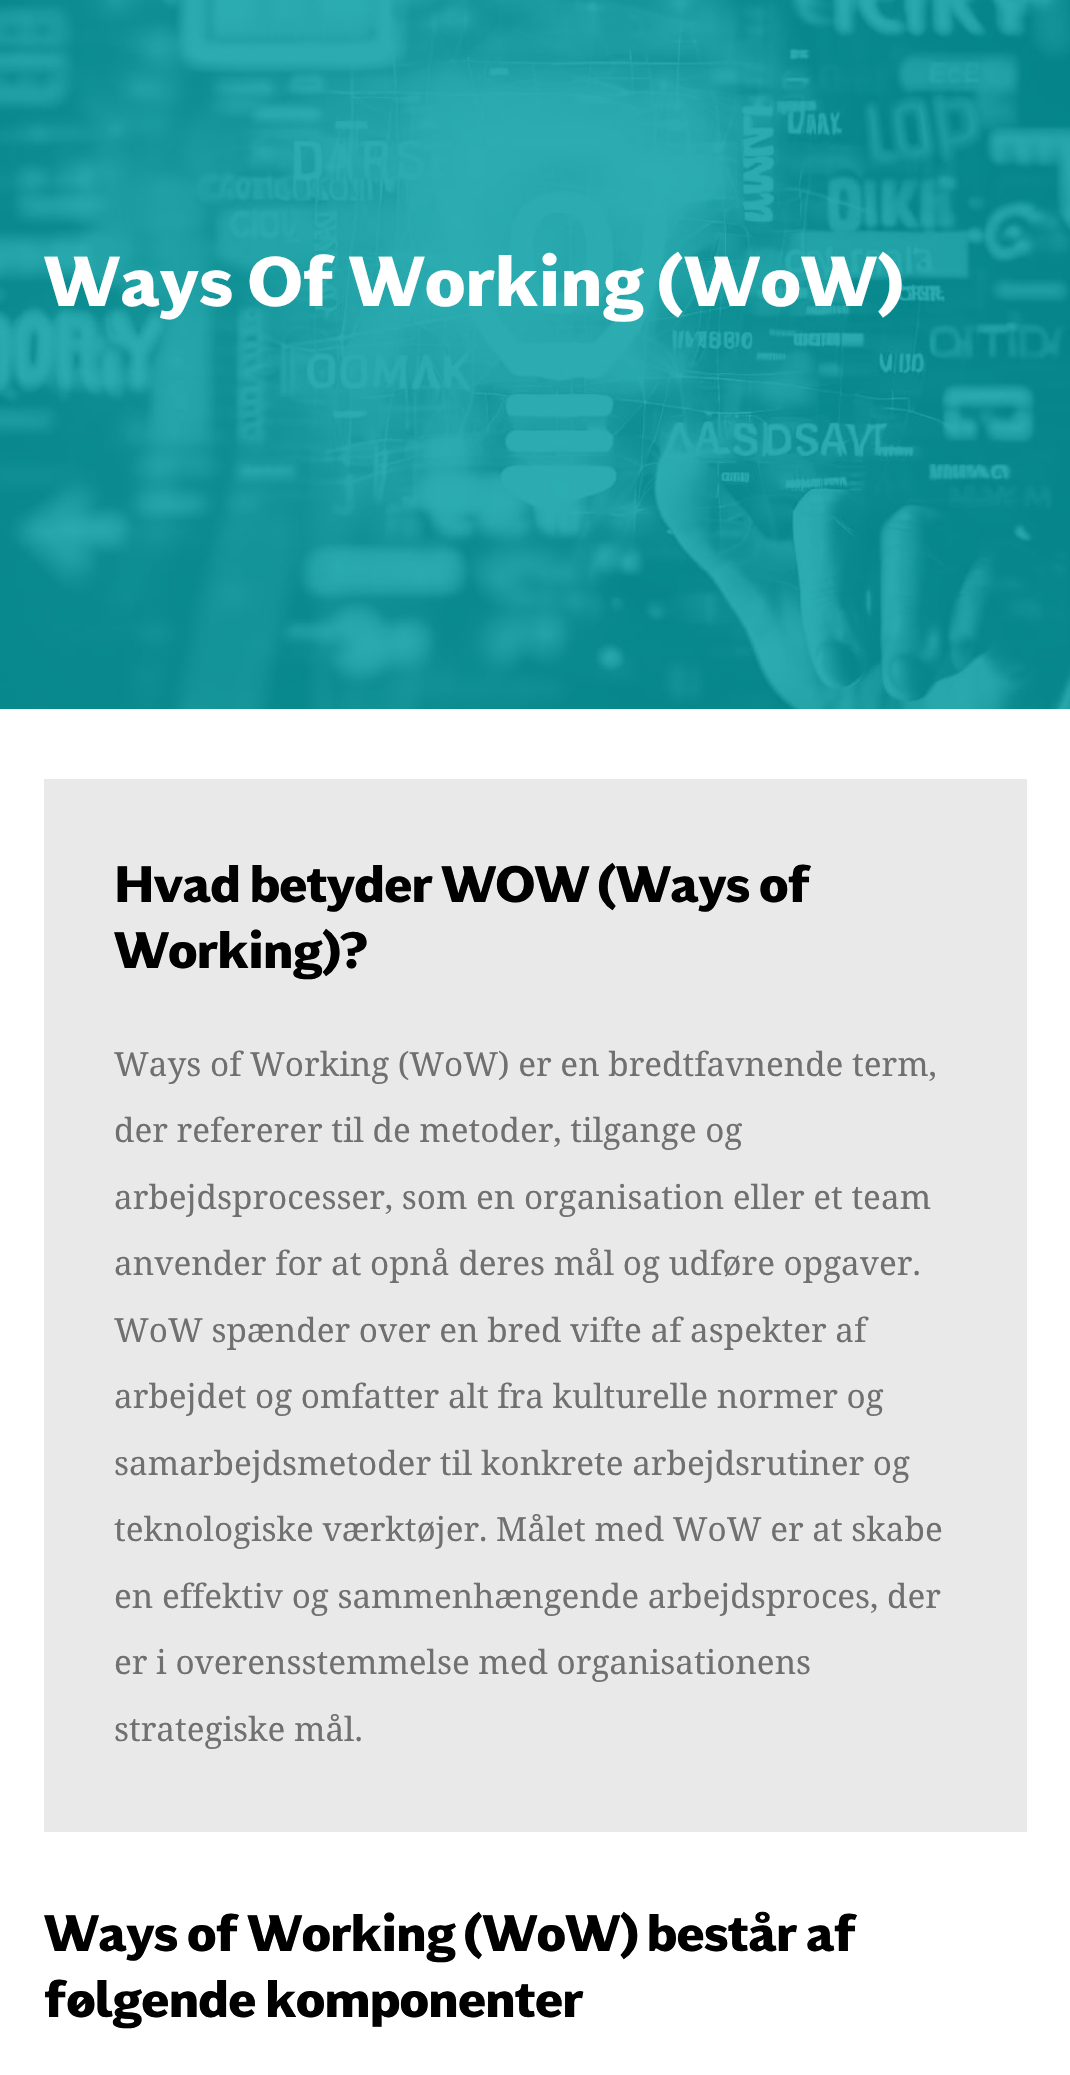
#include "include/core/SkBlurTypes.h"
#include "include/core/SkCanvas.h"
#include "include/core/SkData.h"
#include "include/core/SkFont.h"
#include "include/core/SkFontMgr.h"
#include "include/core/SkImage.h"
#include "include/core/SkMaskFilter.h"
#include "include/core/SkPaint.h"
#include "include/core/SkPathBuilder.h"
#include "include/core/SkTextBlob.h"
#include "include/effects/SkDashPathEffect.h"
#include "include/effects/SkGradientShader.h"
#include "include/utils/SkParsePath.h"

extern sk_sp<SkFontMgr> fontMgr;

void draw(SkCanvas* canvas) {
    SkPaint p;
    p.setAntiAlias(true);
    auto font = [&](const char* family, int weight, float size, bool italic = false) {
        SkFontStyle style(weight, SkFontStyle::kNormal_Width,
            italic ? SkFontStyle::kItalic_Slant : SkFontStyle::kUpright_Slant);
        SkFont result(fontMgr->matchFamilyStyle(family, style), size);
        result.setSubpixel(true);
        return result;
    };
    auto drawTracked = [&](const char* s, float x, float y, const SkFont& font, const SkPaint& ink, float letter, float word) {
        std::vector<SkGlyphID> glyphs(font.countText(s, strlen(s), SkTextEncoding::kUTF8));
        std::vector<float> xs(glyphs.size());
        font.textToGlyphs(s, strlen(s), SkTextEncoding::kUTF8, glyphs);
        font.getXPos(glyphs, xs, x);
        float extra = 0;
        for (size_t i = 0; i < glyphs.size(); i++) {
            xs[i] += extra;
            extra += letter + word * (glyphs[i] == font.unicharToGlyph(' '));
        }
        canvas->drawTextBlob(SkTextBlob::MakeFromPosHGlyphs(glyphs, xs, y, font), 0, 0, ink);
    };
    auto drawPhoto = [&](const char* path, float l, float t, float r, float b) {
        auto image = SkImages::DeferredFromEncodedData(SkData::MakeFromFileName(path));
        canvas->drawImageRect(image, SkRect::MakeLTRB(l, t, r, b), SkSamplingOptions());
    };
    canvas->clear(0xFFFFFFFF);
    drawPhoto("media/1.png", 0, 0, 1070, 709);
    auto font1 = font("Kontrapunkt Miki", 800, 70);
    p.setColor(0xFFFFFFFF);
    canvas->drawString("Ways Of Working (WoW)", 44, 306, font1, p);
    p.setColor(0xFFE9E9E9);
    canvas->drawRect(SkRect::MakeLTRB(44, 779, 1027, 1832), p);
    auto font2 = font("Kontrapunkt Miki", 800, 50.75f);
    p.setColor(0xFF000000);
    drawTracked("Hvad betyder WOW (Ways of", 114, 902, font2, p, -0.9f, 0);
    drawTracked("Working)?", 114, 968, font2, p, -0.9f, 0);
    auto font3 = font("Noto Serif", 400, 33.25f);
    p.setColor(0xFF707070);
    {
        const struct { const char* s; float x, y; } items[] = {
            {"Ways of Working (WoW) er en bredtfavnende term,", 114, 1076},
            {"der refererer til de metoder, tilgange og", 114, 1142},
            {"arbejdsprocesser, som en organisation eller et team", 114, 1209},
            {"anvender for at opnå deres mål og udføre opgaver.", 114, 1275},
            {"WoW spænder over en bred vifte af aspekter af", 114, 1342},
            {"arbejdet og omfatter alt fra kulturelle normer og", 114, 1408},
            {"samarbejdsmetoder til konkrete arbejdsrutiner og", 114, 1475},
            {"teknologiske værktøjer. Målet med WoW er at skabe", 114, 1541},
            {"en effektiv og sammenhængende arbejdsproces, der", 114, 1608},
            {"er i overensstemmelse med organisationens", 114, 1674},
            {"strategiske mål.", 114, 1741},
        };
        for (auto [s, x, y] : items) {
            canvas->drawString(s, x, y, font3, p);
        }
    }
    p.setColor(0xFF000000);
    drawTracked("Ways of Working (WoW) består af", 44, 1951, font2, p, -0.9f, 0);
    drawTracked("følgende komponenter", 44, 2017, font2, p, -0.9f, 0);
}
